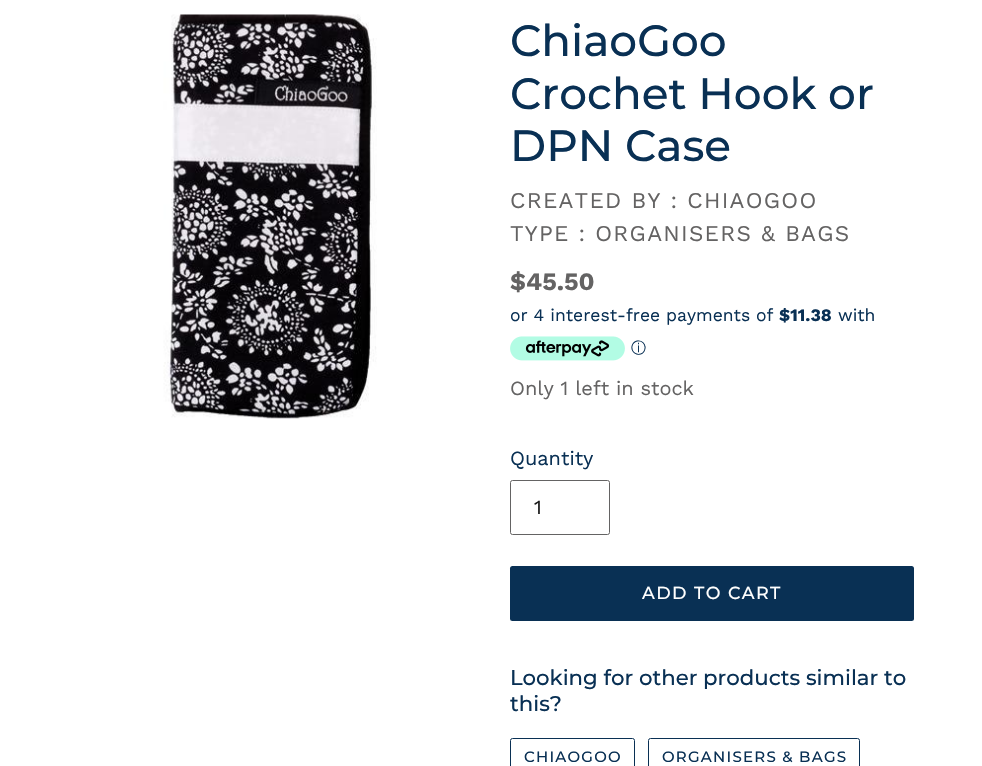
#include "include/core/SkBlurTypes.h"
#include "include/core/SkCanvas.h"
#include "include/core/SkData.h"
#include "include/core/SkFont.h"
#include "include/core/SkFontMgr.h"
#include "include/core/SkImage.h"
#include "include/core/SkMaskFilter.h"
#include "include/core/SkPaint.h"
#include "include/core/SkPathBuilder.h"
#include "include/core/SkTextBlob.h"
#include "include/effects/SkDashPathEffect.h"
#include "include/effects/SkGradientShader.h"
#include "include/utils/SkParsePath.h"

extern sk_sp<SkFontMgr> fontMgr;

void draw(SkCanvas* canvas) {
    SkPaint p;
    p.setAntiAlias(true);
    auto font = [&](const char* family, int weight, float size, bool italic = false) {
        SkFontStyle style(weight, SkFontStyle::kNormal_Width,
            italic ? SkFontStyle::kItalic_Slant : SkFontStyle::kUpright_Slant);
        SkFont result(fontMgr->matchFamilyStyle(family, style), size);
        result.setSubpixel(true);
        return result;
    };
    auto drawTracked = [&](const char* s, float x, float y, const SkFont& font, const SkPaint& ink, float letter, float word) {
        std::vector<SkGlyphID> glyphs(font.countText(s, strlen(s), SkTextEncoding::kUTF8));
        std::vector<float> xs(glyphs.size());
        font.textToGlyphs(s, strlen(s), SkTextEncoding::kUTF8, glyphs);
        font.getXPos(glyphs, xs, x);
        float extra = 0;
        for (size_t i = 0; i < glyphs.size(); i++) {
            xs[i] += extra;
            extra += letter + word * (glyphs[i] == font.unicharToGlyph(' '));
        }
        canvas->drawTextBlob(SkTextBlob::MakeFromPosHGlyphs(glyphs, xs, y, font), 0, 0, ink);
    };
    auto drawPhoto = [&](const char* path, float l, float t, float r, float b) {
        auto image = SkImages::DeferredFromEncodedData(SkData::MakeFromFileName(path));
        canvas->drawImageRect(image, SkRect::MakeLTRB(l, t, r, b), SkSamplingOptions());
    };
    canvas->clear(0xFFFFFFFF);
    drawPhoto("media/1.png", 163, 14, 377, 419);
    auto font1 = font("Montserrat", 500, 43.75f);
    p.setColor(0xFF093054);
    {
        const struct { const char* s; float x, y; } items[] = {
            {"ChiaoGoo", 510, 56},
            {"Crochet Hook or", 510, 109},
            {"DPN Case", 510, 161},
        };
        for (auto [s, x, y] : items) {
            canvas->drawString(s, x, y, font1, p);
        }
    }
    auto font2 = font("Work Sans", 400, 22.5f);
    p.setColor(0xFF646363);
    drawTracked("CREATED BY : CHIAOGOO", 510, 208, font2, p, 1.25f, 0);
    drawTracked("TYPE : ORGANISERS & BAGS", 510, 241, font2, p, 1.25f, 0);
    auto font3 = font("Work Sans", 700, 25);
    canvas->drawString("$45.50", 510, 290, font3, p);
    auto font4 = font("Work Sans", 400, 17.5f);
    p.setColor(0xFF093054);
    canvas->drawString("or 4 interest-free payments of", 510, 321, font4, p);
    auto font5 = font("Work Sans", 700, 17.5f);
    canvas->drawString("$11.38", 779, 321, font5, p);
    canvas->drawString("with", 838, 321, font4, p);
    drawPhoto("media/2.png", 510, 336, 625, 361);
    auto font6 = font("WenQuanYi Zen Hei", 500, 15);
    canvas->drawString("ⓘ", 631, 353, font6, p);
    auto font7 = font("Work Sans", 400, 20);
    p.setColor(0xFF646363);
    canvas->drawString("Only 1 left in stock", 510, 395, font7, p);
    p.setColor(0xFF093054);
    canvas->drawString("Quantity", 510, 465, font7, p);
    p.setStyle(SkPaint::kStroke_Style);
    p.setStrokeWidth(1);
    p.setColor(0xFF646363);
    canvas->drawRoundRect(SkRect::MakeLTRB(510.5f, 480.5f, 609.5f, 534.5f), 2, 2, p);
    p.setStyle(SkPaint::kFill_Style);
    p.setColor(0xFF1B1B1B);
    canvas->drawString("1", 534, 514, font7, p);
    p.setColor(0xFF093054);
    canvas->drawRoundRect(SkRect::MakeLTRB(510, 566, 914, 621), 2.5f, 2.5f, p);
    auto font8 = font("Montserrat", 500, 17.5f);
    p.setColor(0xFFFFFFFF);
    drawTracked("ADD TO CART", 642, 599, font8, p, 1.4f, 0);
    auto font9 = font("Montserrat", 500, 21.25f);
    p.setColor(0xFF093054);
    canvas->drawString("Looking for other products similar to", 510, 685, font9, p);
    canvas->drawString("this?", 510, 711, font9, p);
    p.setStyle(SkPaint::kStroke_Style);
    canvas->drawRoundRect(SkRect::MakeLTRB(510.5f, 738.5f, 634.5f, 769.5f), 2, 2, p);
    auto font10 = font("Montserrat", 500, 15);
    p.setStyle(SkPaint::kFill_Style);
    drawTracked("CHIAOGOO", 524, 762, font10, p, 1.25f, 0);
    p.setStyle(SkPaint::kStroke_Style);
    canvas->drawRoundRect(SkRect::MakeLTRB(648.5f, 738.5f, 859.5f, 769.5f), 2, 2, p);
    p.setStyle(SkPaint::kFill_Style);
    drawTracked("ORGANISERS & BAGS", 662, 762, font10, p, 1.25f, 0);
}
